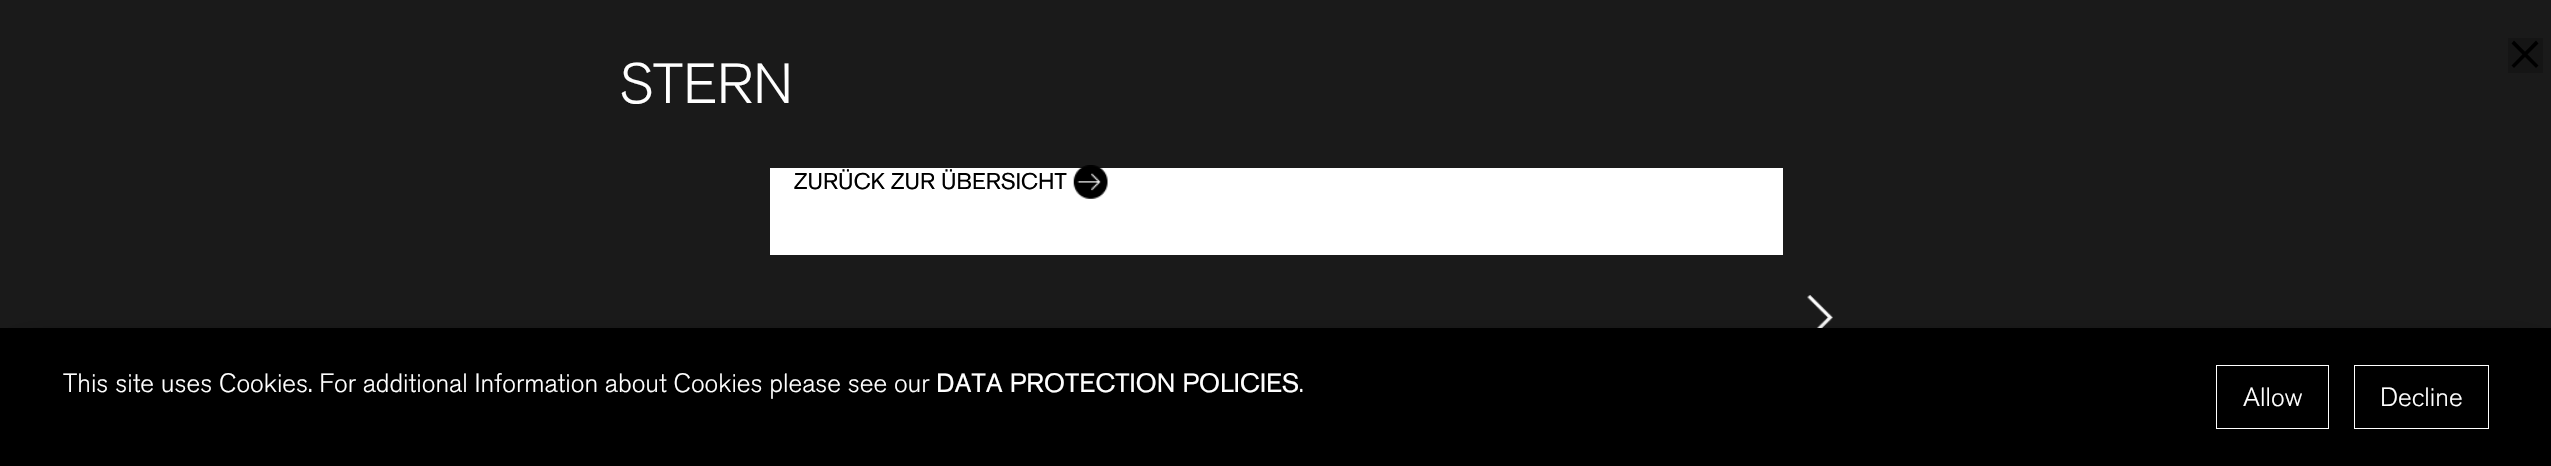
#include "include/core/SkBlurTypes.h"
#include "include/core/SkCanvas.h"
#include "include/core/SkData.h"
#include "include/core/SkFont.h"
#include "include/core/SkFontMgr.h"
#include "include/core/SkImage.h"
#include "include/core/SkMaskFilter.h"
#include "include/core/SkPaint.h"
#include "include/core/SkPathBuilder.h"
#include "include/core/SkTextBlob.h"
#include "include/effects/SkDashPathEffect.h"
#include "include/effects/SkGradientShader.h"
#include "include/utils/SkParsePath.h"

extern sk_sp<SkFontMgr> fontMgr;

void draw(SkCanvas* canvas) {
    SkPaint p;
    p.setAntiAlias(true);
    auto font = [&](const char* family, int weight, float size, bool italic = false) {
        SkFontStyle style(weight, SkFontStyle::kNormal_Width,
            italic ? SkFontStyle::kItalic_Slant : SkFontStyle::kUpright_Slant);
        SkFont result(fontMgr->matchFamilyStyle(family, style), size);
        result.setSubpixel(true);
        return result;
    };
    auto drawPhoto = [&](const char* path, float l, float t, float r, float b) {
        auto image = SkImages::DeferredFromEncodedData(SkData::MakeFromFileName(path));
        canvas->drawImageRect(image, SkRect::MakeLTRB(l, t, r, b), SkSamplingOptions());
    };
    canvas->clear(0xFF1A1A1A);
    p.setColor(0xFF151515);
    canvas->drawRect(SkRect::MakeLTRB(2508, 38, 2543, 73), p);
    p.setColor(0xFF000000);
    canvas->drawPath(SkPathBuilder().moveTo(2511.5f, 65.5f).lineTo(2536, 40.5f).lineTo(2538.5f, 43.5f).lineTo(2514, 68).close().detach(), p);
    canvas->drawPath(SkPathBuilder().moveTo(2514, 40.5f).lineTo(2538.5f, 65.5f).lineTo(2536, 68).lineTo(2511.5f, 43.5f).close().detach(), p);
    auto font1 = font("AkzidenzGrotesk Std", 300, 56);
    p.setColor(0xFFFFFFFF);
    canvas->drawString("STERN", 619, 103, font1, p);
    canvas->drawRect(SkRect::MakeLTRB(770, 168, 1783, 255), p);
    auto font2 = font("AkzidenzGrotesk Std", 400, 22.5f);
    p.setColor(0xFF000000);
    canvas->drawString("ZURÜCK ZUR ÜBERSICHT", 794, 189, font2, p);
    drawPhoto("media/1.png", 1073, 165, 1108, 199);
    drawPhoto("media/2.png", 1807, 295, 1833, 328);
    p.setMaskFilter(SkMaskFilter::MakeBlur(kNormal_SkBlurStyle, 19));
    canvas->drawRect(SkRect::MakeLTRB(13, 353, 2539, 466), p);
    p.setMaskFilter(nullptr);
    canvas->drawRect(SkRect::MakeLTRB(0, 328, 2551, 466), p);
    auto font3 = font("AkzidenzGrotesk Std", 300, 26.25f);
    p.setColor(0xFFFFFFFF);
    canvas->drawString("This site uses Cookies. For additional Information about Cookies please see our", 63, 392, font3, p);
    auto font4 = font("AkzidenzGrotesk Std", 400, 26.25f);
    canvas->drawString("DATA PROTECTION POLICIES", 936, 392, font4, p);
    canvas->drawString(".", 1299, 392, font3, p);
    p.setStyle(SkPaint::kStroke_Style);
    p.setStrokeWidth(1);
    canvas->drawRect(SkRect::MakeLTRB(2216.5f, 365.5f, 2328.5f, 428.5f), p);
    p.setStyle(SkPaint::kFill_Style);
    canvas->drawString("Allow", 2243, 406, font3, p);
    p.setStyle(SkPaint::kStroke_Style);
    canvas->drawRect(SkRect::MakeLTRB(2354.5f, 365.5f, 2488.5f, 428.5f), p);
    p.setStyle(SkPaint::kFill_Style);
    canvas->drawString("Decline", 2380, 406, font3, p);
}
